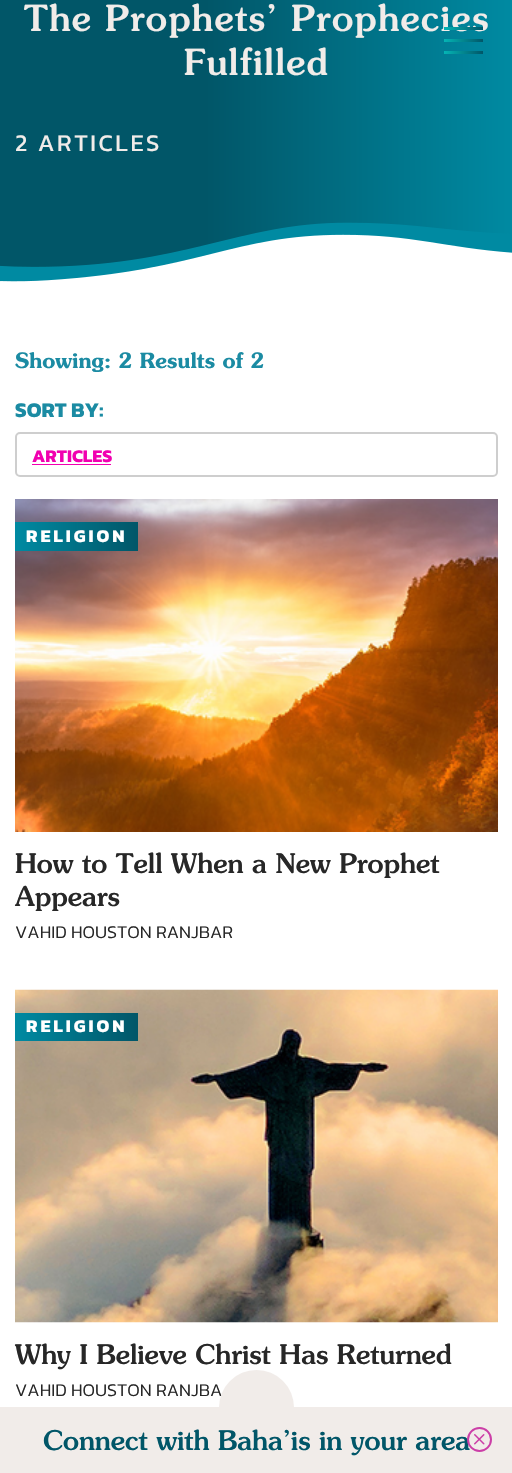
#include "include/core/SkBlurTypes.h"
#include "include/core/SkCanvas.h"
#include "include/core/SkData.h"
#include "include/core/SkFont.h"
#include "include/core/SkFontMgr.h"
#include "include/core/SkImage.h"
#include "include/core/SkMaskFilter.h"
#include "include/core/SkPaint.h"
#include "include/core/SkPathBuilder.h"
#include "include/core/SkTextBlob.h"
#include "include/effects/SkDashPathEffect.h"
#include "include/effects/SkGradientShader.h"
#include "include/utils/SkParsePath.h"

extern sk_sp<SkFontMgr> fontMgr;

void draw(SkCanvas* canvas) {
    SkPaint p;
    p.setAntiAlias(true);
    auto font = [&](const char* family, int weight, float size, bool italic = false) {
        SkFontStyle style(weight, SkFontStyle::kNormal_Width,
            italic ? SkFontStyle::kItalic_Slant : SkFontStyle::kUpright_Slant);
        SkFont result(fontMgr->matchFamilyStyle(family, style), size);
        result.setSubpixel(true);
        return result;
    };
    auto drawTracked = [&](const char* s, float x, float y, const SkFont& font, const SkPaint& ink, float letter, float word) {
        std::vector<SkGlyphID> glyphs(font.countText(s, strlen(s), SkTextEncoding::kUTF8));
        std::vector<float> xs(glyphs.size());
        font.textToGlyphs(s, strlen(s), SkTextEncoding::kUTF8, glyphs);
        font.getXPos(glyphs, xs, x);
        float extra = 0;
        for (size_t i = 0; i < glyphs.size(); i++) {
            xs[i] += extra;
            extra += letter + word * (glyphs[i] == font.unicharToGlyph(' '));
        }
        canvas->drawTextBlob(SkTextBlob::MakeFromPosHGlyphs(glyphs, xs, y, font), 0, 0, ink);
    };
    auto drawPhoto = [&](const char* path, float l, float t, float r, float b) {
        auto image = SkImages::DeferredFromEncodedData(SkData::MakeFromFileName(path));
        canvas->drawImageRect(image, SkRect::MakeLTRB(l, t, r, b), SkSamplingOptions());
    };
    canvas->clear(0xFFFFFFFF);
    {
        const SkColor colors[] = {0xFF015668, 0xFF015668, 0xFF008AA2};
        const float stops[] = {0, 0.4f, 1};
        const SkPoint ends[] = {{0, 86}, {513, 85}};
        p.setShader(SkGradientShader::MakeLinear(ends, colors, stops, 3, SkTileMode::kClamp));
        p.setAlpha(255);
    }
    canvas->drawRect(SkRect::MakeLTRB(0, 0, 512, 267), p);
    auto font1 = font("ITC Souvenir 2", 500, 36);
    p.setShader(nullptr);
    p.setColor(0xFFF1ECE9);
    drawTracked("The Prophets’ Prophecies", 24, 31, font1, p, 1.4f, 0);
    drawTracked("Fulfilled", 184, 75, font1, p, 1.4f, 0);
    auto font2 = font("Kanit", 400, 24);
    drawTracked("2 ARTICLES", 15, 151, font2, p, 2.5f, 0);
    drawPhoto("media/1.png", 0, 222, 512, 282);
    auto font3 = font("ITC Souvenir", 500, 21);
    p.setColor(0xFF1B8BA3);
    canvas->drawString("Showing: 2 Results of 2", 15, 368, font3, p);
    auto font4 = font("Kanit", 700, 21);
    canvas->drawString("SORT BY:", 15, 417, font4, p);
    p.setStyle(SkPaint::kStroke_Style);
    p.setStrokeWidth(2);
    p.setColor(0xFFCECECE);
    canvas->drawRoundRect(SkRect::MakeLTRB(16, 433, 497, 476), 4, 4, p);
    auto font5 = font("Kanit", 700, 18);
    p.setStyle(SkPaint::kFill_Style);
    p.setColor(0xFFF100B0);
    canvas->drawString("ARTICLES", 32, 462, font5, p);
    canvas->drawRect(SkRect::MakeLTRB(32, 464, 111, 465), p);
    drawPhoto("media/2.png", 15, 499, 498, 832);
    {
        const SkColor colors[] = {0xFF008AA2, 0xFF015668};
        const float stops[] = {0, 1};
        const SkPoint ends[] = {{15, 536}, {138, 536}};
        p.setShader(SkGradientShader::MakeLinear(ends, colors, stops, 2, SkTileMode::kClamp));
        p.setAlpha(255);
    }
    canvas->drawRect(SkRect::MakeLTRB(15, 522, 138, 551), p);
    p.setShader(nullptr);
    p.setColor(0xFFFFFFFF);
    drawTracked("RELIGION", 26, 542, font5, p, 3, 0);
    auto font6 = font("ITC Souvenir 2", 500, 27);
    p.setColor(0xFF272727);
    canvas->drawString("How to Tell When a New Prophet", 15, 873, font6, p);
    canvas->drawString("Appears", 15, 906, font6, p);
    auto font7 = font("Kanit", 300, 18);
    canvas->drawString("VAHID HOUSTON RANJBAR", 15, 938, font7, p);
    drawPhoto("media/3.png", 15, 989, 498, 1323);
    {
        const SkColor colors[] = {0xFF008AA2, 0xFF015668};
        const float stops[] = {0, 1};
        const SkPoint ends[] = {{15, 1027}, {138, 1027}};
        p.setShader(SkGradientShader::MakeLinear(ends, colors, stops, 2, SkTileMode::kClamp));
        p.setAlpha(255);
    }
    canvas->drawRect(SkRect::MakeLTRB(15, 1013, 138, 1041), p);
    p.setShader(nullptr);
    p.setColor(0xFFFFFFFF);
    drawTracked("RELIGION", 26, 1032, font5, p, 3, 0);
    p.setColor(0xFF272727);
    canvas->drawString("Why I Believe Christ Has Returned", 15, 1364, font6, p);
    canvas->drawString("VAHID HOUSTON RANJBA", 15, 1396, font7, p);
    {
        const SkColor colors[] = {0xFF04B5B5, 0xFF015668};
        const float stops[] = {0, 1};
        const SkPoint ends[] = {{444, 29}, {483, 29}};
        p.setShader(SkGradientShader::MakeLinear(ends, colors, stops, 2, SkTileMode::kClamp));
        p.setAlpha(255);
    }
    canvas->drawRect(SkRect::MakeLTRB(444, 27, 483, 30), p);
    {
        const SkColor colors[] = {0xFF04B5B5, 0xFF015668};
        const float stops[] = {0, 1};
        const SkPoint ends[] = {{444, 41}, {483, 41}};
        p.setShader(SkGradientShader::MakeLinear(ends, colors, stops, 2, SkTileMode::kClamp));
        p.setAlpha(255);
    }
    canvas->drawRect(SkRect::MakeLTRB(444, 39, 483, 42), p);
    {
        const SkColor colors[] = {0xFF04B5B5, 0xFF015668};
        const float stops[] = {0, 1};
        const SkPoint ends[] = {{444, 53}, {483, 53}};
        p.setShader(SkGradientShader::MakeLinear(ends, colors, stops, 2, SkTileMode::kClamp));
        p.setAlpha(255);
    }
    canvas->drawRect(SkRect::MakeLTRB(444, 51, 483, 54), p);
    p.setShader(nullptr);
    p.setColor(0xFFF1ECE9);
    canvas->drawRect(SkRect::MakeLTRB(0, 1407, 512, 1473), p);
    canvas->drawCircle(256.5f, 1407.5f, 37.5f, p);
    drawPhoto("media/4.png", 474, 1434, 485, 1445);
    p.setColor(0xFF015668);
    canvas->drawString("Connect with Baha’is in your area", 43, 1450, font6, p);
    p.setStyle(SkPaint::kStroke_Style);
    p.setColor(0xFFCC3EA7);
    canvas->drawCircle(479.5f, 1439.5f, 11.5f, p);
}
